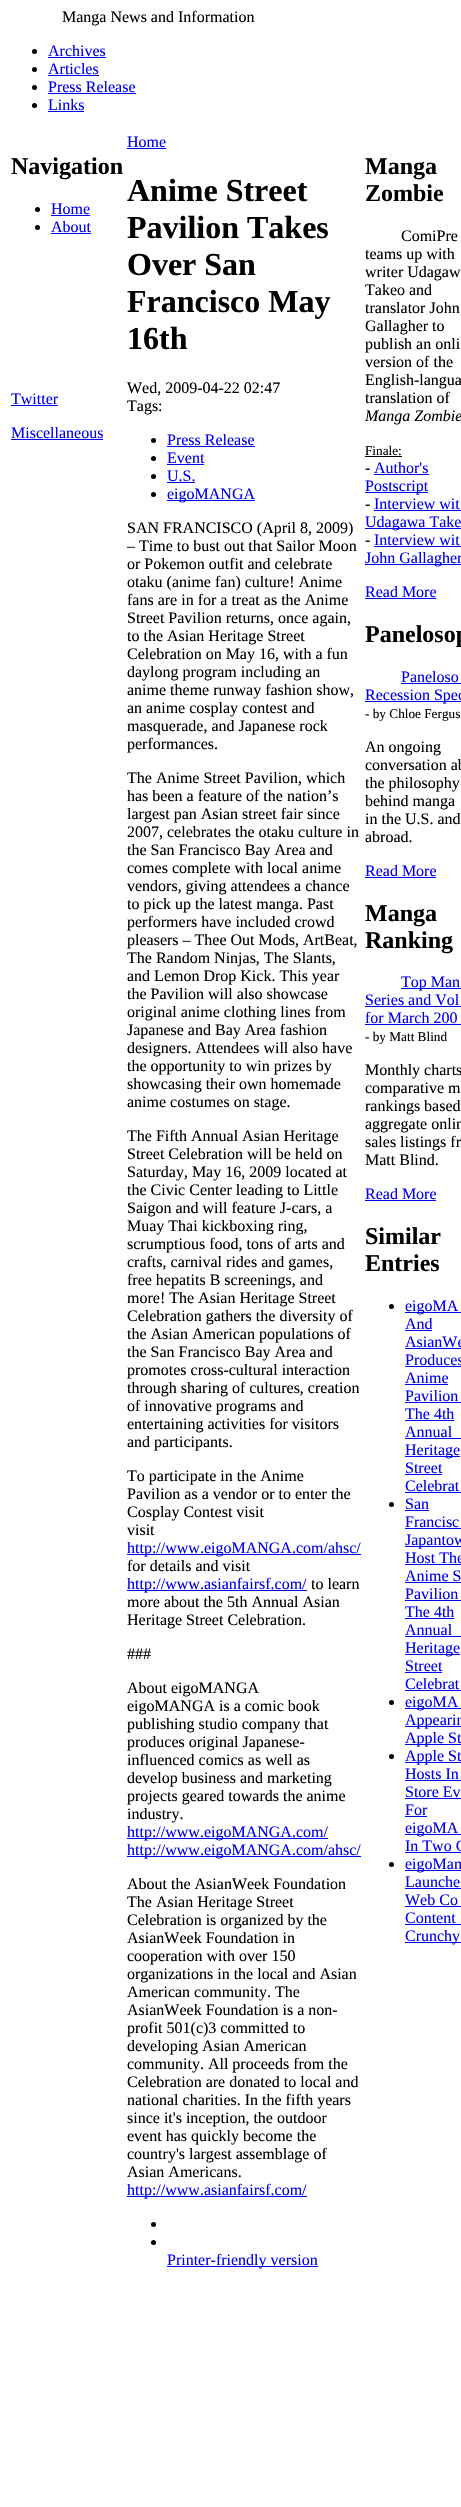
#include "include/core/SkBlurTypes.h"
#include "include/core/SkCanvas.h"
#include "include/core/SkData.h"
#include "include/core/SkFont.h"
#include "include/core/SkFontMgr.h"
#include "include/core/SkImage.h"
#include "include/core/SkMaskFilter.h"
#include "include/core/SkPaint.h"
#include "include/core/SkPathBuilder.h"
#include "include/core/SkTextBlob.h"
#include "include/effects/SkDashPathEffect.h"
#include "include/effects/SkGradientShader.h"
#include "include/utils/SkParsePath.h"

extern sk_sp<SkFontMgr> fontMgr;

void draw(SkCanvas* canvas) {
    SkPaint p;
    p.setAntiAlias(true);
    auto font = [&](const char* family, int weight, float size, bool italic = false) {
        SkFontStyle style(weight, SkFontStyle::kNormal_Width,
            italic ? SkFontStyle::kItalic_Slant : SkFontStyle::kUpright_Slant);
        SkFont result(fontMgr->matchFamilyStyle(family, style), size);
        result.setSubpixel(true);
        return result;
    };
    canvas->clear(0xFFFFFFFF);
    auto font1 = font("Liberation Serif", 400, 16);
    p.setColor(0xFF000000);
    canvas->drawString("Manga News and Information", 62, 22, font1, p);
    canvas->drawCircle(34.5f, 51.5f, 2.5f, p);
    p.setColor(0xFF0000EE);
    canvas->drawString("Archives", 48, 56, font1, p);
    canvas->drawRect(SkRect::MakeLTRB(48, 57, 106, 58), p);
    p.setColor(0xFF000000);
    canvas->drawCircle(34.5f, 69.5f, 2.5f, p);
    p.setColor(0xFF0000EE);
    canvas->drawString("Articles", 48, 74, font1, p);
    canvas->drawRect(SkRect::MakeLTRB(48, 75, 99, 76), p);
    p.setColor(0xFF000000);
    canvas->drawCircle(34.5f, 87.5f, 2.5f, p);
    p.setColor(0xFF0000EE);
    canvas->drawString("Press Release", 48, 92, font1, p);
    canvas->drawRect(SkRect::MakeLTRB(48, 93, 136, 94), p);
    p.setColor(0xFF000000);
    canvas->drawCircle(34.5f, 105.5f, 2.5f, p);
    p.setColor(0xFF0000EE);
    canvas->drawString("Links", 48, 110, font1, p);
    canvas->drawRect(SkRect::MakeLTRB(48, 111, 84, 112), p);
    auto font2 = font("Liberation Serif", 700, 24);
    p.setColor(0xFF000000);
    canvas->drawString("Navigation", 11, 174, font2, p);
    canvas->drawCircle(37.5f, 209.5f, 2.5f, p);
    p.setColor(0xFF0000EE);
    canvas->drawString("Home", 51, 214, font1, p);
    canvas->drawRect(SkRect::MakeLTRB(51, 215, 90, 216), p);
    p.setColor(0xFF000000);
    canvas->drawCircle(37.5f, 227.5f, 2.5f, p);
    p.setColor(0xFF0000EE);
    canvas->drawString("About", 51, 232, font1, p);
    canvas->drawRect(SkRect::MakeLTRB(51, 233, 91, 234), p);
    canvas->drawString("Twitter", 11, 404, font1, p);
    canvas->drawRect(SkRect::MakeLTRB(11, 405, 58, 406), p);
    canvas->drawString("Miscellaneous", 11, 438, font1, p);
    canvas->drawRect(SkRect::MakeLTRB(11, 439, 103, 440), p);
    canvas->drawString("Home", 127, 147, font1, p);
    canvas->drawRect(SkRect::MakeLTRB(127, 148, 166, 149), p);
    auto font3 = font("Liberation Serif", 700, 32);
    p.setColor(0xFF000000);
    {
        const struct { const char* s; float x, y; } items[] = {
            {"Anime Street", 127, 201},
            {"Pavilion Takes", 127, 238},
            {"Over San", 127, 275},
            {"Francisco May", 127, 312},
            {"16th", 127, 349},
        };
        for (auto [s, x, y] : items) {
            canvas->drawString(s, x, y, font3, p);
        }
    }
    canvas->drawString("Wed, 2009-04-22 02:47", 127, 393, font1, p);
    canvas->drawString("Tags:", 127, 411, font1, p);
    canvas->drawCircle(153.5f, 440.5f, 2.5f, p);
    p.setColor(0xFF0000EE);
    canvas->drawString("Press Release", 167, 445, font1, p);
    canvas->drawRect(SkRect::MakeLTRB(167, 446, 255, 447), p);
    p.setColor(0xFF000000);
    canvas->drawCircle(153.5f, 458.5f, 2.5f, p);
    p.setColor(0xFF0000EE);
    canvas->drawString("Event", 167, 463, font1, p);
    canvas->drawRect(SkRect::MakeLTRB(167, 464, 204, 465), p);
    p.setColor(0xFF000000);
    canvas->drawCircle(153.5f, 476.5f, 2.5f, p);
    p.setColor(0xFF0000EE);
    canvas->drawString("U.S.", 167, 481, font1, p);
    canvas->drawRect(SkRect::MakeLTRB(167, 482, 195, 483), p);
    p.setColor(0xFF000000);
    canvas->drawCircle(153.5f, 494.5f, 2.5f, p);
    p.setColor(0xFF0000EE);
    canvas->drawRect(SkRect::MakeLTRB(167, 500, 255, 501), p);
    canvas->drawString("eigoMANGA", 167, 499, font1, p);
    p.setColor(0xFF000000);
    {
        const struct { const char* s; float x, y; } items[] = {
            {"SAN FRANCISCO (April 8, 2009)", 127, 533},
            {"– Time to bust out that Sailor Moon", 127, 551},
            {"or Pokemon outfit and celebrate", 127, 569},
            {"otaku (anime fan) culture! Anime", 127, 587},
            {"fans are in for a treat as the Anime", 127, 605},
            {"Street Pavilion returns, once again,", 127, 623},
            {"to the Asian Heritage Street", 127, 641},
            {"Celebration on May 16, with a fun", 127, 659},
            {"daylong program including an", 127, 677},
            {"anime theme runway fashion show,", 127, 695},
            {"an anime cosplay contest and", 127, 713},
            {"masquerade, and Japanese rock", 127, 731},
            {"performances.", 127, 749},
            {"The Anime Street Pavilion, which", 127, 783},
            {"has been a feature of the nation’s", 127, 801},
            {"largest pan Asian street fair since", 127, 819},
            {"2007, celebrates the otaku culture in", 127, 837},
            {"the San Francisco Bay Area and", 127, 855},
            {"comes complete with local anime", 127, 873},
            {"vendors, giving attendees a chance", 127, 891},
            {"to pick up the latest manga. Past", 127, 909},
            {"performers have included crowd", 127, 927},
            {"pleasers – Thee Out Mods, ArtBeat,", 127, 945},
            {"The Random Ninjas, The Slants,", 127, 963},
            {"and Lemon Drop Kick. This year", 127, 981},
            {"the Pavilion will also showcase", 127, 999},
            {"original anime clothing lines from", 127, 1017},
            {"Japanese and Bay Area fashion", 127, 1035},
            {"designers. Attendees will also have", 127, 1053},
            {"the opportunity to win prizes by", 127, 1071},
            {"showcasing their own homemade", 127, 1089},
            {"anime costumes on stage.", 127, 1107},
            {"The Fifth Annual Asian Heritage", 127, 1141},
            {"Street Celebration will be held on", 127, 1159},
            {"Saturday, May 16, 2009 located at", 127, 1177},
            {"the Civic Center leading to Little", 127, 1195},
            {"Saigon and will feature J-cars, a", 127, 1213},
            {"Muay Thai kickboxing ring,", 127, 1231},
            {"scrumptious food, tons of arts and", 127, 1249},
            {"crafts, carnival rides and games,", 127, 1267},
            {"free hepatits B screenings, and", 127, 1285},
            {"more! The Asian Heritage Street", 127, 1303},
            {"Celebration gathers the diversity of", 127, 1321},
            {"the Asian American populations of", 127, 1339},
            {"the San Francisco Bay Area and", 127, 1357},
            {"promotes cross-cultural interaction", 127, 1375},
            {"through sharing of cultures, creation", 127, 1393},
            {"of innovative programs and", 127, 1411},
            {"entertaining activities for visitors", 127, 1429},
            {"and participants.", 127, 1447},
            {"To participate in the Anime", 127, 1481},
            {"Pavilion as a vendor or to enter the", 127, 1499},
            {"Cosplay Contest visit", 127, 1517},
            {"visit", 127, 1535},
        };
        for (auto [s, x, y] : items) {
            canvas->drawString(s, x, y, font1, p);
        }
    }
    p.setColor(0xFF0000EE);
    canvas->drawRect(SkRect::MakeLTRB(127, 1554, 361, 1555), p);
    canvas->drawString("http://www.eigoMANGA.com/ahsc/", 127, 1553, font1, p);
    p.setColor(0xFF000000);
    canvas->drawString("for details and visit", 127, 1571, font1, p);
    p.setColor(0xFF0000EE);
    canvas->drawRect(SkRect::MakeLTRB(127, 1590, 307, 1591), p);
    canvas->drawString("http://www.asianfairsf.com/", 127, 1589, font1, p);
    p.setColor(0xFF000000);
    {
        const struct { const char* s; float x, y; } items[] = {
            {"to learn", 311, 1589},
            {"more about the 5th Annual Asian", 127, 1607},
            {"Heritage Street Celebration.", 127, 1625},
            {"###", 127, 1659},
            {"About eigoMANGA", 127, 1693},
            {"eigoMANGA is a comic book", 127, 1711},
            {"publishing studio company that", 127, 1729},
            {"produces original Japanese-", 127, 1747},
            {"influenced comics as well as", 127, 1765},
            {"develop business and marketing", 127, 1783},
            {"projects geared towards the anime", 127, 1801},
            {"industry.", 127, 1819},
        };
        for (auto [s, x, y] : items) {
            canvas->drawString(s, x, y, font1, p);
        }
    }
    p.setColor(0xFF0000EE);
    canvas->drawRect(SkRect::MakeLTRB(127, 1838, 328, 1839), p);
    canvas->drawString("http://www.eigoMANGA.com/", 127, 1837, font1, p);
    canvas->drawRect(SkRect::MakeLTRB(127, 1856, 361, 1857), p);
    canvas->drawString("http://www.eigoMANGA.com/ahsc/", 127, 1855, font1, p);
    p.setColor(0xFF000000);
    {
        const struct { const char* s; float x, y; } items[] = {
            {"About the AsianWeek Foundation", 127, 1889},
            {"The Asian Heritage Street", 127, 1907},
            {"Celebration is organized by the", 127, 1925},
            {"AsianWeek Foundation in", 127, 1943},
            {"cooperation with over 150", 127, 1961},
            {"organizations in the local and Asian", 127, 1979},
            {"American community. The", 127, 1997},
            {"AsianWeek Foundation is a non-", 127, 2015},
            {"profit 501(c)3 committed to", 127, 2033},
            {"developing Asian American", 127, 2051},
            {"community. All proceeds from the", 127, 2069},
            {"Celebration are donated to local and", 127, 2087},
            {"national charities. In the fifth years", 127, 2105},
            {"since it's inception, the outdoor", 127, 2123},
            {"event has quickly become the", 127, 2141},
            {"country's largest assemblage of", 127, 2159},
            {"Asian Americans.", 127, 2177},
        };
        for (auto [s, x, y] : items) {
            canvas->drawString(s, x, y, font1, p);
        }
    }
    p.setColor(0xFF0000EE);
    canvas->drawRect(SkRect::MakeLTRB(127, 2196, 307, 2197), p);
    canvas->drawString("http://www.asianfairsf.com/", 127, 2195, font1, p);
    p.setColor(0xFF000000);
    canvas->drawCircle(153.5f, 2224.5f, 2.5f, p);
    canvas->drawCircle(153.5f, 2242.5f, 2.5f, p);
    p.setColor(0xFF0000EE);
    canvas->drawRect(SkRect::MakeLTRB(167, 2266, 318, 2267), p);
    canvas->drawString("Printer-friendly version", 167, 2265, font1, p);
    p.setColor(0xFF000000);
    canvas->drawString("Manga", 365, 174, font2, p);
    canvas->drawString("Zombie", 365, 201, font2, p);
    {
        const struct { const char* s; float x, y; } items[] = {
            {"ComiPre", 401, 241},
            {"teams up with", 365, 259},
            {"writer Udagaw", 365, 277},
            {"Takeo and", 365, 295},
            {"translator John", 365, 313},
            {"Gallagher to", 365, 331},
            {"publish an onli", 365, 349},
            {"version of the", 365, 367},
            {"English-langua", 365, 385},
            {"translation of", 365, 403},
        };
        for (auto [s, x, y] : items) {
            canvas->drawString(s, x, y, font1, p);
        }
    }
    auto font4 = font("Liberation Serif", 400, 16, true);
    canvas->drawString("Manga Zombie", 365, 421, font4, p);
    auto font5 = font("Liberation Serif", 400, 13.25f);
    canvas->drawString("Finale:", 365, 455, font5, p);
    canvas->drawRect(SkRect::MakeLTRB(365, 456, 402, 457), p);
    canvas->drawString("-", 365, 473, font1, p);
    p.setColor(0xFF0000EE);
    canvas->drawString("Author's", 374, 473, font1, p);
    canvas->drawRect(SkRect::MakeLTRB(374, 474, 429, 475), p);
    canvas->drawRect(SkRect::MakeLTRB(365, 492, 428, 493), p);
    canvas->drawString("Postscript", 365, 491, font1, p);
    p.setColor(0xFF000000);
    canvas->drawString("-", 365, 509, font1, p);
    p.setColor(0xFF0000EE);
    canvas->drawString("Interview wit", 374, 509, font1, p);
    canvas->drawRect(SkRect::MakeLTRB(374, 510, 461, 511), p);
    canvas->drawRect(SkRect::MakeLTRB(365, 528, 461, 529), p);
    canvas->drawString("Udagawa Take", 365, 527, font1, p);
    p.setColor(0xFF000000);
    canvas->drawString("-", 365, 545, font1, p);
    p.setColor(0xFF0000EE);
    canvas->drawString("Interview wit", 374, 545, font1, p);
    canvas->drawRect(SkRect::MakeLTRB(374, 546, 461, 547), p);
    canvas->drawRect(SkRect::MakeLTRB(365, 564, 461, 565), p);
    canvas->drawString("John Gallagher", 365, 563, font1, p);
    canvas->drawString("Read More", 365, 597, font1, p);
    canvas->drawRect(SkRect::MakeLTRB(365, 598, 436, 599), p);
    p.setColor(0xFF000000);
    canvas->drawString("Panelosop", 365, 642, font2, p);
    p.setColor(0xFF0000EE);
    canvas->drawString("Paneloso", 401, 682, font1, p);
    canvas->drawRect(SkRect::MakeLTRB(401, 683, 461, 684), p);
    canvas->drawRect(SkRect::MakeLTRB(365, 701, 461, 702), p);
    canvas->drawString("Recession Spec", 365, 700, font1, p);
    p.setColor(0xFF000000);
    canvas->drawString("- by Chloe Fergus", 365, 718, font5, p);
    {
        const struct { const char* s; float x, y; } items[] = {
            {"An ongoing", 365, 752},
            {"conversation ab", 365, 770},
            {"the philosophy", 365, 788},
            {"behind manga", 365, 806},
            {"in the U.S. and", 365, 824},
            {"abroad.", 365, 842},
        };
        for (auto [s, x, y] : items) {
            canvas->drawString(s, x, y, font1, p);
        }
    }
    p.setColor(0xFF0000EE);
    canvas->drawString("Read More", 365, 876, font1, p);
    canvas->drawRect(SkRect::MakeLTRB(365, 877, 436, 878), p);
    p.setColor(0xFF000000);
    canvas->drawString("Manga", 365, 921, font2, p);
    canvas->drawString("Ranking", 365, 948, font2, p);
    p.setColor(0xFF0000EE);
    canvas->drawRect(SkRect::MakeLTRB(401, 988, 461, 989), p);
    canvas->drawString("Top Man", 401, 987, font1, p);
    canvas->drawString("Series and Vol", 365, 1005, font1, p);
    canvas->drawRect(SkRect::MakeLTRB(365, 1006, 461, 1007), p);
    canvas->drawString("for March 200", 365, 1023, font1, p);
    canvas->drawRect(SkRect::MakeLTRB(365, 1024, 461, 1025), p);
    p.setColor(0xFF000000);
    canvas->drawString("- by Matt Blind", 365, 1041, font5, p);
    {
        const struct { const char* s; float x, y; } items[] = {
            {"Monthly charts", 365, 1075},
            {"comparative m", 365, 1093},
            {"rankings based", 365, 1111},
            {"aggregate onlin", 365, 1129},
            {"sales listings fr", 365, 1147},
            {"Matt Blind.", 365, 1165},
        };
        for (auto [s, x, y] : items) {
            canvas->drawString(s, x, y, font1, p);
        }
    }
    p.setColor(0xFF0000EE);
    canvas->drawString("Read More", 365, 1199, font1, p);
    canvas->drawRect(SkRect::MakeLTRB(365, 1200, 436, 1201), p);
    p.setColor(0xFF000000);
    canvas->drawString("Similar", 365, 1244, font2, p);
    canvas->drawString("Entries", 365, 1271, font2, p);
    canvas->drawCircle(391.5f, 1306.5f, 2.5f, p);
    p.setColor(0xFF0000EE);
    canvas->drawRect(SkRect::MakeLTRB(405, 1312, 461, 1313), p);
    canvas->drawString("eigoMA", 405, 1311, font1, p);
    canvas->drawString("And", 405, 1329, font1, p);
    canvas->drawRect(SkRect::MakeLTRB(405, 1330, 432, 1331), p);
    canvas->drawString("AsianWe", 405, 1347, font1, p);
    canvas->drawRect(SkRect::MakeLTRB(405, 1348, 461, 1349), p);
    canvas->drawString("Produces", 405, 1365, font1, p);
    canvas->drawRect(SkRect::MakeLTRB(405, 1366, 461, 1367), p);
    canvas->drawString("Anime", 405, 1383, font1, p);
    canvas->drawRect(SkRect::MakeLTRB(405, 1384, 448, 1385), p);
    canvas->drawString("Pavilion", 405, 1401, font1, p);
    canvas->drawRect(SkRect::MakeLTRB(405, 1402, 461, 1403), p);
    canvas->drawString("The 4th", 405, 1419, font1, p);
    canvas->drawRect(SkRect::MakeLTRB(405, 1420, 454, 1421), p);
    canvas->drawString("Annual", 405, 1437, font1, p);
    canvas->drawRect(SkRect::MakeLTRB(405, 1438, 461, 1439), p);
    canvas->drawRect(SkRect::MakeLTRB(405, 1456, 460, 1457), p);
    canvas->drawString("Heritage", 405, 1455, font1, p);
    canvas->drawString("Street", 405, 1473, font1, p);
    canvas->drawRect(SkRect::MakeLTRB(405, 1474, 442, 1475), p);
    canvas->drawString("Celebrat", 405, 1491, font1, p);
    canvas->drawRect(SkRect::MakeLTRB(405, 1492, 461, 1493), p);
    p.setColor(0xFF000000);
    canvas->drawCircle(391.5f, 1504.5f, 2.5f, p);
    p.setColor(0xFF0000EE);
    canvas->drawString("San", 405, 1509, font1, p);
    canvas->drawRect(SkRect::MakeLTRB(405, 1510, 429, 1511), p);
    canvas->drawString("Francisc", 405, 1527, font1, p);
    canvas->drawRect(SkRect::MakeLTRB(405, 1528, 461, 1529), p);
    canvas->drawRect(SkRect::MakeLTRB(405, 1546, 461, 1547), p);
    canvas->drawString("Japantow", 405, 1545, font1, p);
    canvas->drawString("Host The", 405, 1563, font1, p);
    canvas->drawRect(SkRect::MakeLTRB(405, 1564, 461, 1565), p);
    canvas->drawString("Anime S", 405, 1581, font1, p);
    canvas->drawRect(SkRect::MakeLTRB(405, 1582, 461, 1583), p);
    canvas->drawString("Pavilion", 405, 1599, font1, p);
    canvas->drawRect(SkRect::MakeLTRB(405, 1600, 461, 1601), p);
    canvas->drawString("The 4th", 405, 1617, font1, p);
    canvas->drawRect(SkRect::MakeLTRB(405, 1618, 454, 1619), p);
    canvas->drawString("Annual", 405, 1635, font1, p);
    canvas->drawRect(SkRect::MakeLTRB(405, 1636, 461, 1637), p);
    canvas->drawRect(SkRect::MakeLTRB(405, 1654, 460, 1655), p);
    canvas->drawString("Heritage", 405, 1653, font1, p);
    canvas->drawString("Street", 405, 1671, font1, p);
    canvas->drawRect(SkRect::MakeLTRB(405, 1672, 442, 1673), p);
    canvas->drawString("Celebrat", 405, 1689, font1, p);
    canvas->drawRect(SkRect::MakeLTRB(405, 1690, 461, 1691), p);
    p.setColor(0xFF000000);
    canvas->drawCircle(391.5f, 1702.5f, 2.5f, p);
    p.setColor(0xFF0000EE);
    canvas->drawRect(SkRect::MakeLTRB(405, 1708, 461, 1709), p);
    canvas->drawString("eigoMA", 405, 1707, font1, p);
    canvas->drawRect(SkRect::MakeLTRB(405, 1726, 461, 1727), p);
    canvas->drawString("Appearin", 405, 1725, font1, p);
    canvas->drawRect(SkRect::MakeLTRB(405, 1744, 461, 1745), p);
    canvas->drawString("Apple St", 405, 1743, font1, p);
    p.setColor(0xFF000000);
    canvas->drawCircle(391.5f, 1756.5f, 2.5f, p);
    p.setColor(0xFF0000EE);
    canvas->drawRect(SkRect::MakeLTRB(405, 1762, 461, 1763), p);
    canvas->drawString("Apple St", 405, 1761, font1, p);
    canvas->drawString("Hosts In", 405, 1779, font1, p);
    canvas->drawRect(SkRect::MakeLTRB(405, 1780, 461, 1781), p);
    canvas->drawString("Store Ev", 405, 1797, font1, p);
    canvas->drawRect(SkRect::MakeLTRB(405, 1798, 461, 1799), p);
    canvas->drawString("For", 405, 1815, font1, p);
    canvas->drawRect(SkRect::MakeLTRB(405, 1816, 427, 1817), p);
    canvas->drawRect(SkRect::MakeLTRB(405, 1834, 461, 1835), p);
    canvas->drawString("eigoMA", 405, 1833, font1, p);
    canvas->drawString("In Two C", 405, 1851, font1, p);
    canvas->drawRect(SkRect::MakeLTRB(405, 1852, 461, 1853), p);
    p.setColor(0xFF000000);
    canvas->drawCircle(391.5f, 1864.5f, 2.5f, p);
    p.setColor(0xFF0000EE);
    canvas->drawRect(SkRect::MakeLTRB(405, 1870, 461, 1871), p);
    canvas->drawString("eigoMan", 405, 1869, font1, p);
    canvas->drawString("Launche", 405, 1887, font1, p);
    canvas->drawRect(SkRect::MakeLTRB(405, 1888, 461, 1889), p);
    canvas->drawString("Web Co", 405, 1905, font1, p);
    canvas->drawRect(SkRect::MakeLTRB(405, 1906, 461, 1907), p);
    canvas->drawString("Content", 405, 1923, font1, p);
    canvas->drawRect(SkRect::MakeLTRB(405, 1924, 461, 1925), p);
    canvas->drawRect(SkRect::MakeLTRB(405, 1942, 461, 1943), p);
    canvas->drawString("Crunchy", 405, 1941, font1, p);
}
